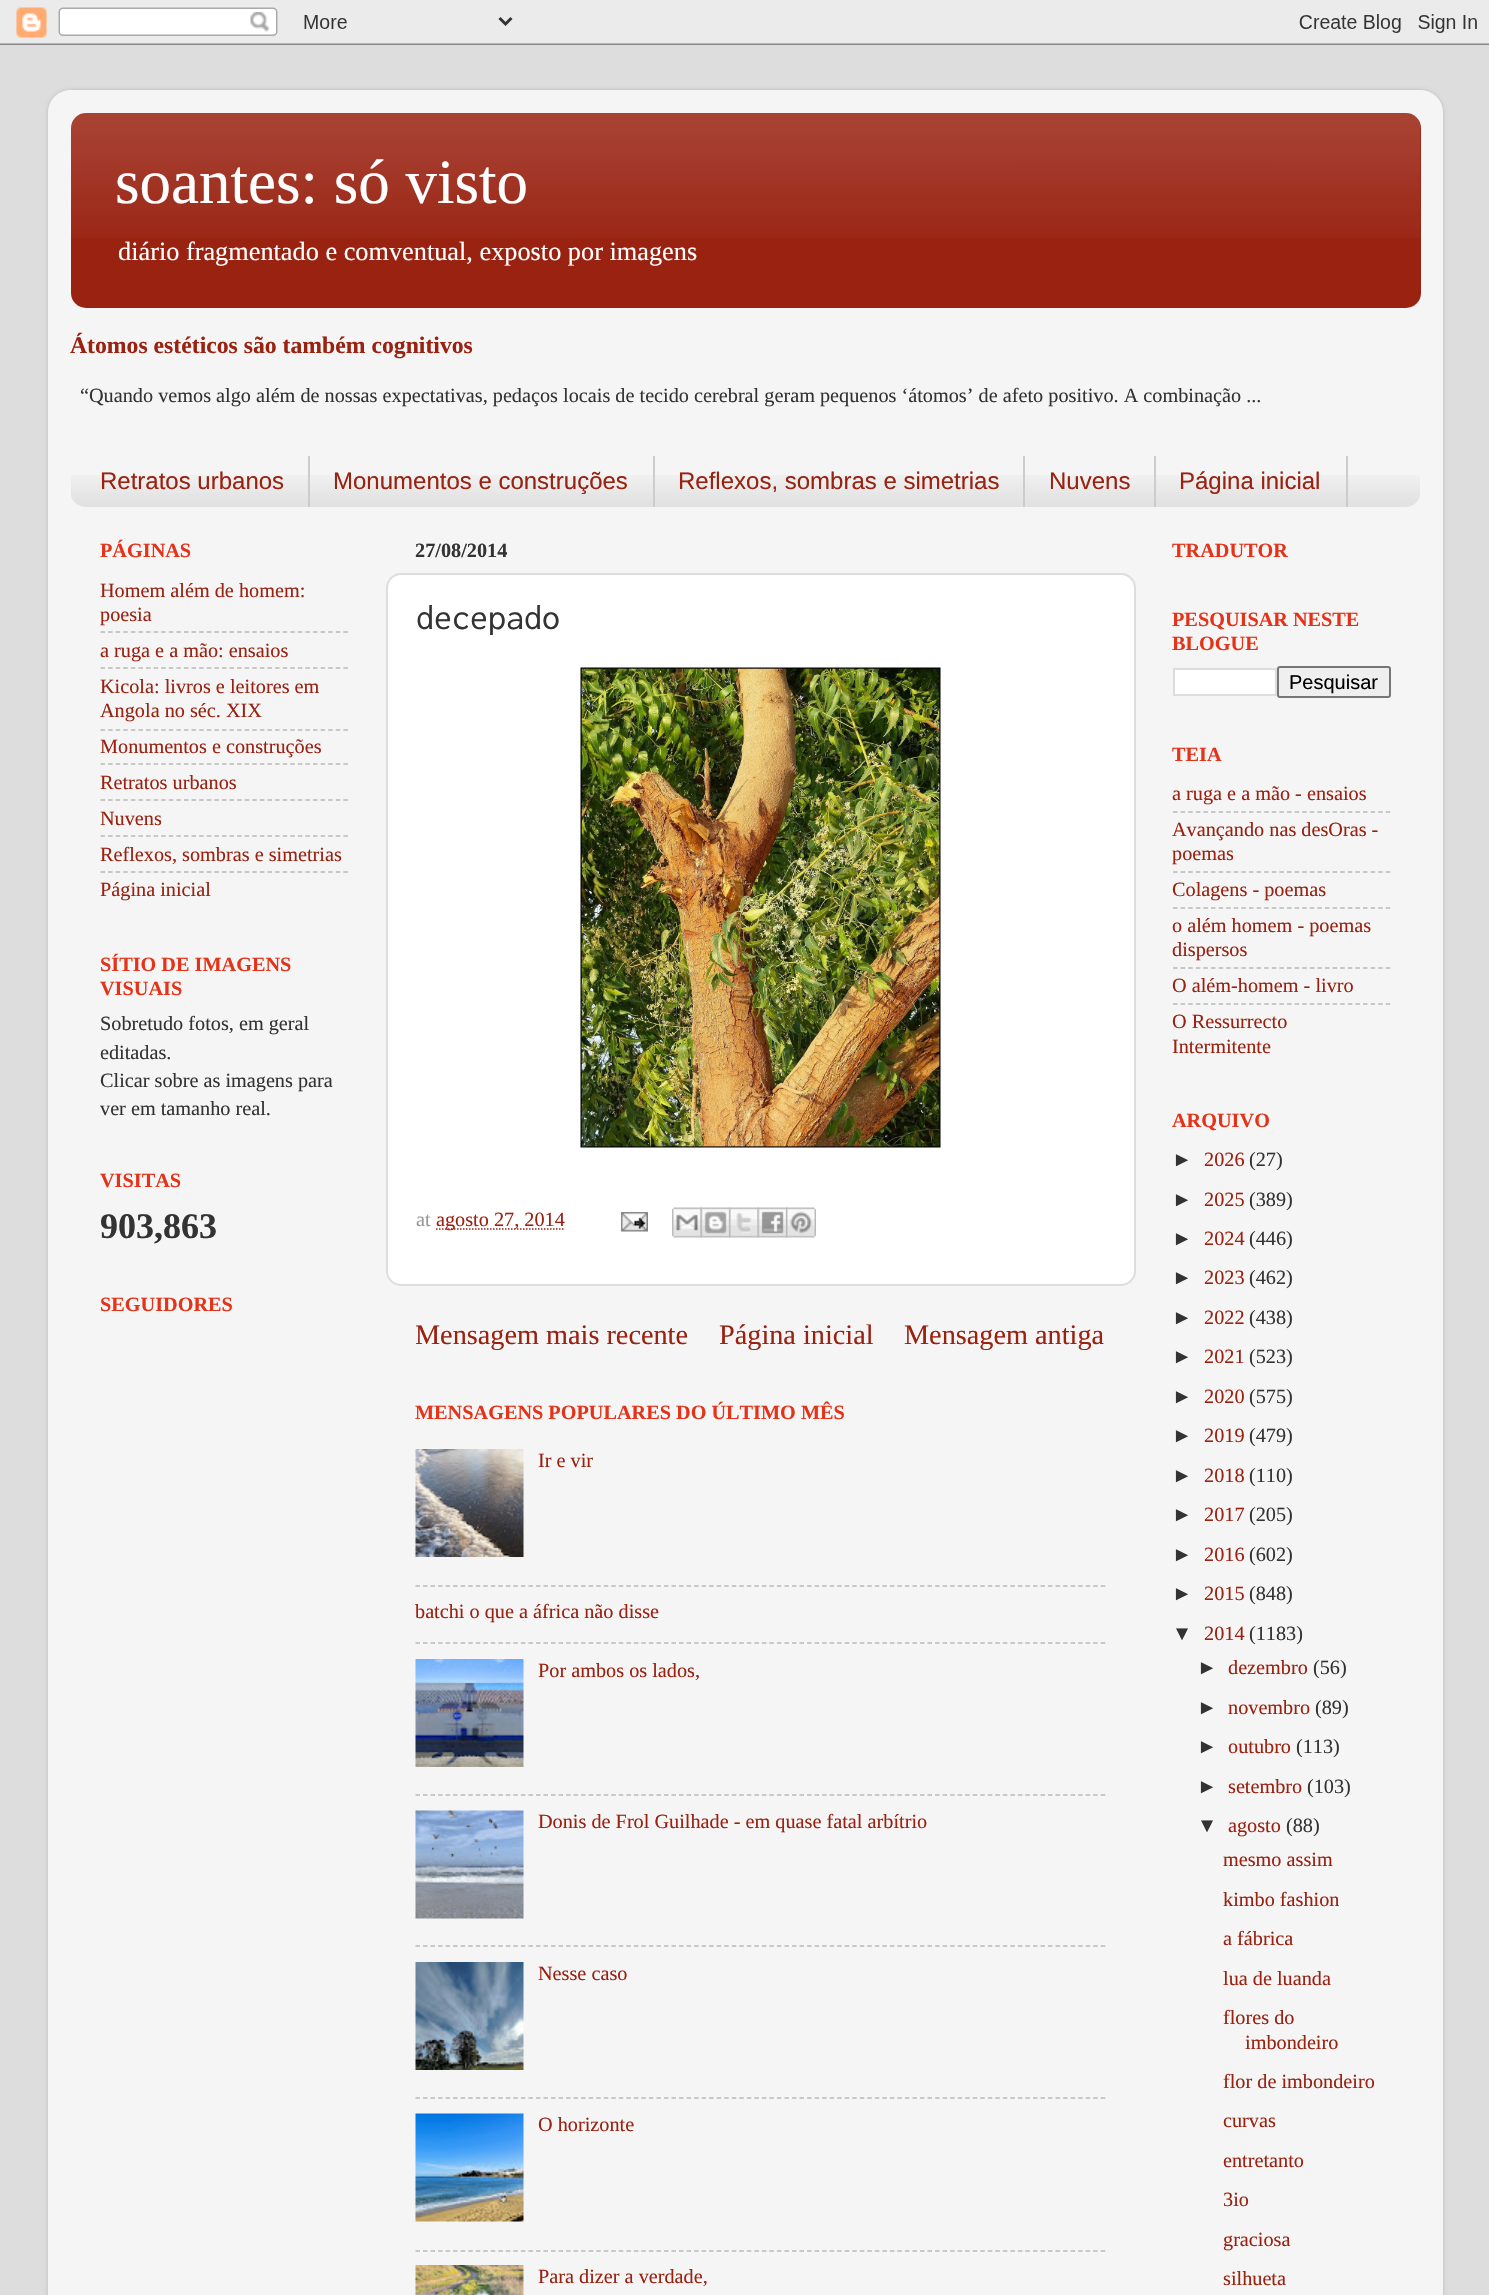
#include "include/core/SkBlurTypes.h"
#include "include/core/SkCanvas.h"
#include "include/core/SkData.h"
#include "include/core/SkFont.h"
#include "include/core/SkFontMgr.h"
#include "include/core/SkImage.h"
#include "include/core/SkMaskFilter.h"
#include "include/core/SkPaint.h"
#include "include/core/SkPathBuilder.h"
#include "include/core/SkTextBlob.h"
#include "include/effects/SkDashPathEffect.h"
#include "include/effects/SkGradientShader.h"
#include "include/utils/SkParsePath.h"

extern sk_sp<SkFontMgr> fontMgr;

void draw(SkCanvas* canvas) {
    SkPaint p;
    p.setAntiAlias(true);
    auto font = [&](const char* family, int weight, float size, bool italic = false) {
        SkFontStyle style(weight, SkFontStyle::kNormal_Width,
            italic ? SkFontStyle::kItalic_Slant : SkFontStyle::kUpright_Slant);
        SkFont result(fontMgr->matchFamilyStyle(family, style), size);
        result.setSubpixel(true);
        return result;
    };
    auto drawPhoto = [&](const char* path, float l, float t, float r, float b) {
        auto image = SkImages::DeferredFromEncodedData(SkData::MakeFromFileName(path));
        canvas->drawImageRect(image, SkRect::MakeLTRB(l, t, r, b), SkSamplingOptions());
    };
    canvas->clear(0xFFDDDDDD);
    drawPhoto("media/1.png", 0, 0, 1489, 45);
    canvas->save();
    canvas->clipPath(SkPathBuilder(SkPathFillType::kEvenOdd).moveTo(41, 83).lineTo(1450, 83).lineTo(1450, 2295).lineTo(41, 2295).close().moveTo(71, 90).lineTo(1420, 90).cubicTo(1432.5f, 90, 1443, 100.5f, 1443, 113).lineTo(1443, 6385).cubicTo(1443, 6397.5f, 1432.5f, 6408, 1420, 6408).lineTo(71, 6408).cubicTo(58.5f, 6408, 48, 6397.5f, 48, 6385).lineTo(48, 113).cubicTo(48, 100.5f, 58.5f, 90, 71, 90).close().detach(), true);
    p.setColor(0x26000000);
    p.setMaskFilter(SkMaskFilter::MakeBlur(kNormal_SkBlurStyle, 2));
    canvas->drawRoundRect(SkRect::MakeLTRB(48, 90, 1443, 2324), 23, 23, p);
    p.setMaskFilter(nullptr);
    canvas->restore();
    drawPhoto("media/2.png", 48, 90, 1443, 2295);
    p.setColor(0xFF992211);
    canvas->drawRoundRect(SkRect::MakeLTRB(71, 113, 1421, 308), 15, 15, p);
    drawPhoto("media/3.png", 71, 113, 1421, 238);
    auto font1 = font("Liberation Serif", 400, 63);
    p.setColor(0xFFFFFFFF);
    canvas->drawString("soantes: só visto", 115, 203, font1, p);
    auto font2 = font("Liberation Serif", 400, 26.3f);
    canvas->drawString("diário fragmentado e comventual, exposto por imagens", 118, 260, font2, p);
    auto font3 = font("Liberation Serif", 700, 23.7f);
    p.setColor(0xFF992211);
    canvas->drawString("Átomos estéticos são também cognitivos", 70, 353, font3, p);
    auto font4 = font("Liberation Serif", 400, 20.25f);
    p.setColor(0xFF333333);
    canvas->drawString("“Quando vemos algo além de nossas expectativas, pedaços locais de tecido cerebral geram pequenos ‘átomos’ de afeto positivo. A combinação ...", 80, 402, font4, p);
    drawPhoto("media/4.png", 71, 475, 1420, 507);
    p.setColor(0xFFCCCCCC);
    canvas->drawRect(SkRect::MakeLTRB(308, 456, 310, 507), p);
    auto font5 = font("Liberation Sans", 400, 24);
    p.setColor(0xFF992211);
    canvas->drawString("Retratos urbanos", 100, 489, font5, p);
    p.setColor(0xFFCCCCCC);
    canvas->drawRect(SkRect::MakeLTRB(653, 456, 655, 507), p);
    p.setColor(0xFF992211);
    canvas->drawString("Monumentos e construções", 333, 489, font5, p);
    p.setColor(0xFFCCCCCC);
    canvas->drawRect(SkRect::MakeLTRB(1023, 456, 1025, 507), p);
    p.setColor(0xFF992211);
    canvas->drawString("Reflexos, sombras e simetrias", 678, 489, font5, p);
    p.setColor(0xFFCCCCCC);
    canvas->drawRect(SkRect::MakeLTRB(1154, 456, 1156, 507), p);
    p.setColor(0xFF992211);
    canvas->drawString("Nuvens", 1049, 489, font5, p);
    p.setColor(0xFFCCCCCC);
    canvas->drawRect(SkRect::MakeLTRB(1346, 456, 1348, 507), p);
    p.setColor(0xFF992211);
    canvas->drawString("Página inicial", 1179, 489, font5, p);
    auto font6 = font("Liberation Serif", 700, 20.25f);
    p.setColor(0xFFE53319);
    canvas->drawString("PÁGINAS", 100, 557, font6, p);
    p.setColor(0xFF992211);
    canvas->drawString("Homem além de homem:", 100, 597, font4, p);
    canvas->drawString("poesia", 100, 621, font4, p);
    p.setStyle(SkPaint::kStroke_Style);
    p.setStrokeWidth(1.5f);
    p.setColor(0xFFBABABA);
    p.setPathEffect(SkDashPathEffect::Make({{4.5f, 3.09f}}, 0));
    canvas->drawPath(SkPathBuilder().moveTo(100.5f, 632).lineTo(348, 632).detach(), p);
    p.setPathEffect(nullptr);
    p.setStyle(SkPaint::kFill_Style);
    p.setColor(0xFF992211);
    canvas->drawString("a ruga e a mão: ensaios", 100, 657, font4, p);
    p.setStyle(SkPaint::kStroke_Style);
    p.setColor(0xFFBABABA);
    p.setPathEffect(SkDashPathEffect::Make({{4.5f, 3.09f}}, 0));
    canvas->drawPath(SkPathBuilder().moveTo(100.5f, 668).lineTo(348, 668).detach(), p);
    p.setPathEffect(nullptr);
    p.setStyle(SkPaint::kFill_Style);
    p.setColor(0xFF992211);
    canvas->drawString("Kicola: livros e leitores em", 100, 693, font4, p);
    canvas->drawString("Angola no séc. XIX", 100, 717, font4, p);
    p.setStyle(SkPaint::kStroke_Style);
    p.setColor(0xFFBABABA);
    p.setPathEffect(SkDashPathEffect::Make({{4.5f, 3.09f}}, 0));
    canvas->drawPath(SkPathBuilder().moveTo(100.5f, 730).lineTo(348, 730).detach(), p);
    p.setPathEffect(nullptr);
    p.setStyle(SkPaint::kFill_Style);
    p.setColor(0xFF992211);
    canvas->drawString("Monumentos e construções", 100, 753, font4, p);
    p.setStyle(SkPaint::kStroke_Style);
    p.setColor(0xFFBABABA);
    p.setPathEffect(SkDashPathEffect::Make({{4.5f, 3.09f}}, 0));
    canvas->drawPath(SkPathBuilder().moveTo(100.5f, 764).lineTo(348, 764).detach(), p);
    p.setPathEffect(nullptr);
    p.setStyle(SkPaint::kFill_Style);
    p.setColor(0xFF992211);
    canvas->drawString("Retratos urbanos", 100, 789, font4, p);
    p.setStyle(SkPaint::kStroke_Style);
    p.setColor(0xFFBABABA);
    p.setPathEffect(SkDashPathEffect::Make({{4.5f, 3.09f}}, 0));
    canvas->drawPath(SkPathBuilder().moveTo(100.5f, 800).lineTo(348, 800).detach(), p);
    p.setPathEffect(nullptr);
    p.setStyle(SkPaint::kFill_Style);
    p.setColor(0xFF992211);
    canvas->drawString("Nuvens", 100, 825, font4, p);
    p.setStyle(SkPaint::kStroke_Style);
    p.setColor(0xFFBABABA);
    p.setPathEffect(SkDashPathEffect::Make({{4.5f, 3.09f}}, 0));
    canvas->drawPath(SkPathBuilder().moveTo(100.5f, 836).lineTo(348, 836).detach(), p);
    p.setPathEffect(nullptr);
    p.setStyle(SkPaint::kFill_Style);
    p.setColor(0xFF992211);
    canvas->drawString("Reflexos, sombras e simetrias", 100, 861, font4, p);
    p.setStyle(SkPaint::kStroke_Style);
    p.setColor(0xFFBABABA);
    p.setPathEffect(SkDashPathEffect::Make({{4.5f, 3.09f}}, 0));
    canvas->drawPath(SkPathBuilder().moveTo(100.5f, 872).lineTo(348, 872).detach(), p);
    p.setPathEffect(nullptr);
    p.setStyle(SkPaint::kFill_Style);
    p.setColor(0xFF992211);
    canvas->drawString("Página inicial", 100, 896, font4, p);
    p.setColor(0xFFE53319);
    canvas->drawString("SÍTIO DE IMAGENS", 100, 971, font6, p);
    canvas->drawString("VISUAIS", 100, 995, font6, p);
    p.setColor(0xFF333333);
    {
        const struct { const char* s; float x, y; } items[] = {
            {"Sobretudo fotos, em geral", 100, 1030},
            {"editadas.", 100, 1059},
            {"Clicar sobre as imagens para", 100, 1087},
            {"ver em tamanho real.", 100, 1115},
        };
        for (auto [s, x, y] : items) {
            canvas->drawString(s, x, y, font4, p);
        }
    }
    p.setColor(0xFFE53319);
    canvas->drawString("VISITAS", 100, 1187, font6, p);
    auto font7 = font("Liberation Serif", 700, 36);
    p.setColor(0xFF333333);
    canvas->drawString("903,863", 100, 1238, font7, p);
    p.setColor(0xFFE53319);
    canvas->drawString("SEGUIDORES", 100, 1311, font6, p);
    p.setColor(0xFF333333);
    canvas->drawString("27/08/2014", 415, 557, font6, p);
    p.setColor(0xFFFFFFFF);
    canvas->drawRoundRect(SkRect::MakeLTRB(387, 574, 1135, 1285), 14, 14, p);
    p.setStyle(SkPaint::kStroke_Style);
    p.setStrokeWidth(2);
    p.setColor(0xFFDDDDDD);
    canvas->drawRoundRect(SkRect::MakeLTRB(387, 574, 1135, 1285), 14, 14, p);
    auto font8 = font("Inconsolata", 400, 36);
    p.setStyle(SkPaint::kFill_Style);
    p.setColor(0xFF333333);
    canvas->drawString("decepado", 416, 629, font8, p);
    drawPhoto("media/5.png", 580, 667, 941, 1148);
    p.setColor(0xFF999999);
    canvas->drawString("at", 416, 1226, font4, p);
    p.setStyle(SkPaint::kStroke_Style);
    p.setStrokeWidth(1.5f);
    p.setColor(0xFF992211);
    p.setPathEffect(SkDashPathEffect::Make({{1.5f, 1.5f}}, 0));
    canvas->drawPath(SkPathBuilder().moveTo(436, 1229).lineTo(565, 1229).detach(), p);
    p.setPathEffect(nullptr);
    p.setStyle(SkPaint::kFill_Style);
    canvas->drawString("agosto 27, 2014", 436, 1226, font4, p);
    drawPhoto("media/6.png", 621, 1212, 648, 1232);
    drawPhoto("media/7.png", 672, 1207, 702, 1238);
    drawPhoto("media/8.png", 700, 1207, 731, 1238);
    drawPhoto("media/9.png", 729, 1207, 759, 1238);
    drawPhoto("media/10.png", 757, 1207, 788, 1238);
    drawPhoto("media/11.png", 786, 1207, 816, 1238);
    canvas->save();
    canvas->clipRect(SkRect::MakeLTRB(416, 1316, 1106, 1356));
    auto font9 = font("Liberation Serif", 400, 28.25f);
    canvas->drawString("Mensagem mais recente", 415, 1344, font9, p);
    canvas->restore();
    canvas->drawString("Página inicial", 719, 1344, font9, p);
    canvas->drawString("Mensagem antiga", 904, 1344, font9, p);
    p.setColor(0xFFE53319);
    canvas->drawString("MENSAGENS POPULARES DO ÚLTIMO MÊS", 415, 1419, font6, p);
    drawPhoto("media/12.png", 415, 1449, 524, 1557);
    p.setColor(0xFF992211);
    canvas->drawString("Ir e vir", 538, 1467, font4, p);
    p.setStyle(SkPaint::kStroke_Style);
    p.setColor(0xFFBABABA);
    p.setPathEffect(SkDashPathEffect::Make({{4.5f, 3.03f}}, 0));
    canvas->drawPath(SkPathBuilder().moveTo(415.5f, 1586).lineTo(1105.5f, 1586).detach(), p);
    p.setPathEffect(nullptr);
    p.setStyle(SkPaint::kFill_Style);
    p.setColor(0xFF992211);
    canvas->drawString("batchi o que a áfrica não disse", 415, 1618, font4, p);
    p.setStyle(SkPaint::kStroke_Style);
    p.setColor(0xFFBABABA);
    p.setPathEffect(SkDashPathEffect::Make({{4.5f, 3.03f}}, 0));
    canvas->drawPath(SkPathBuilder().moveTo(415.5f, 1643).lineTo(1105.5f, 1643).detach(), p);
    p.setPathEffect(nullptr);
    drawPhoto("media/13.png", 415, 1659, 524, 1767);
    p.setStyle(SkPaint::kFill_Style);
    p.setColor(0xFF992211);
    canvas->drawString("Por ambos os lados,", 538, 1677, font4, p);
    p.setStyle(SkPaint::kStroke_Style);
    p.setColor(0xFFBABABA);
    p.setPathEffect(SkDashPathEffect::Make({{4.5f, 3.03f}}, 0));
    canvas->drawPath(SkPathBuilder().moveTo(415.5f, 1795).lineTo(1105.5f, 1795).detach(), p);
    p.setPathEffect(nullptr);
    drawPhoto("media/14.png", 415, 1810, 524, 1919);
    p.setStyle(SkPaint::kFill_Style);
    p.setColor(0xFF992211);
    canvas->drawString("Donis de Frol Guilhade - em quase fatal arbítrio", 538, 1828, font4, p);
    p.setStyle(SkPaint::kStroke_Style);
    p.setColor(0xFFBABABA);
    p.setPathEffect(SkDashPathEffect::Make({{4.5f, 3.03f}}, 0));
    canvas->drawPath(SkPathBuilder().moveTo(415.5f, 1946).lineTo(1105.5f, 1946).detach(), p);
    p.setPathEffect(nullptr);
    drawPhoto("media/15.png", 415, 1962, 524, 2070);
    p.setStyle(SkPaint::kFill_Style);
    p.setColor(0xFF992211);
    canvas->drawString("Nesse caso", 538, 1980, font4, p);
    p.setStyle(SkPaint::kStroke_Style);
    p.setColor(0xFFBABABA);
    p.setPathEffect(SkDashPathEffect::Make({{4.5f, 3.03f}}, 0));
    canvas->drawPath(SkPathBuilder().moveTo(415.5f, 2098).lineTo(1105.5f, 2098).detach(), p);
    p.setPathEffect(nullptr);
    drawPhoto("media/16.png", 415, 2113, 524, 2222);
    p.setStyle(SkPaint::kFill_Style);
    p.setColor(0xFF992211);
    canvas->drawString("O horizonte", 538, 2131, font4, p);
    p.setStyle(SkPaint::kStroke_Style);
    p.setColor(0xFFBABABA);
    p.setPathEffect(SkDashPathEffect::Make({{4.5f, 3.03f}}, 0));
    canvas->drawPath(SkPathBuilder().moveTo(415.5f, 2251).lineTo(1105.5f, 2251).detach(), p);
    p.setPathEffect(nullptr);
    drawPhoto("media/17.png", 415, 2265, 524, 2295);
    p.setStyle(SkPaint::kFill_Style);
    p.setColor(0xFF992211);
    canvas->drawString("Para dizer a verdade,", 538, 2283, font4, p);
    p.setColor(0xFFE53319);
    {
        const struct { const char* s; float x, y; } items[] = {
            {"TRADUTOR", 1172, 557},
            {"PESQUISAR NESTE", 1172, 626},
            {"BLOGUE", 1172, 650},
        };
        for (auto [s, x, y] : items) {
            canvas->drawString(s, x, y, font6, p);
        }
    }
    p.setColor(0xFFFFFFFF);
    canvas->drawRect(SkRect::MakeLTRB(1174, 669, 1276, 695), p);
    p.setStyle(SkPaint::kStroke_Style);
    p.setStrokeWidth(2);
    p.setColor(0xFFDDDDDD);
    canvas->drawRect(SkRect::MakeLTRB(1174, 669, 1276, 695), p);
    p.setStyle(SkPaint::kFill_Style);
    p.setColor(0xFFEFEFEF);
    canvas->drawRoundRect(SkRect::MakeLTRB(1278, 667, 1390, 697), 2, 2, p);
    p.setStyle(SkPaint::kStroke_Style);
    p.setColor(0xFF767676);
    canvas->drawRoundRect(SkRect::MakeLTRB(1278, 667, 1390, 697), 2, 2, p);
    auto font10 = font("Liberation Sans", 400, 20);
    p.setStyle(SkPaint::kFill_Style);
    p.setColor(0xFF000000);
    canvas->drawString("Pesquisar", 1289, 689, font10, p);
    p.setColor(0xFFE53319);
    canvas->drawString("TEIA", 1172, 761, font6, p);
    p.setColor(0xFF992211);
    canvas->drawString("a ruga e a mão - ensaios", 1172, 800, font4, p);
    p.setStyle(SkPaint::kStroke_Style);
    p.setStrokeWidth(1.5f);
    p.setColor(0xFFBABABA);
    p.setPathEffect(SkDashPathEffect::Make({{4.5f, 3.1f}}, 0));
    canvas->drawPath(SkPathBuilder().moveTo(1173, 812).lineTo(1390.5f, 812).detach(), p);
    p.setPathEffect(nullptr);
    p.setStyle(SkPaint::kFill_Style);
    p.setColor(0xFF992211);
    canvas->drawString("Avançando nas desOras -", 1172, 836, font4, p);
    canvas->drawString("poemas", 1172, 860, font4, p);
    p.setStyle(SkPaint::kStroke_Style);
    p.setColor(0xFFBABABA);
    p.setPathEffect(SkDashPathEffect::Make({{4.5f, 3.1f}}, 0));
    canvas->drawPath(SkPathBuilder().moveTo(1173, 872).lineTo(1390.5f, 872).detach(), p);
    p.setPathEffect(nullptr);
    p.setStyle(SkPaint::kFill_Style);
    p.setColor(0xFF992211);
    canvas->drawString("Colagens - poemas", 1172, 896, font4, p);
    p.setStyle(SkPaint::kStroke_Style);
    p.setColor(0xFFBABABA);
    p.setPathEffect(SkDashPathEffect::Make({{4.5f, 3.1f}}, 0));
    canvas->drawPath(SkPathBuilder().moveTo(1173, 908).lineTo(1390.5f, 908).detach(), p);
    p.setPathEffect(nullptr);
    p.setStyle(SkPaint::kFill_Style);
    p.setColor(0xFF992211);
    canvas->drawString("o além homem - poemas", 1172, 932, font4, p);
    canvas->drawString("dispersos", 1172, 956, font4, p);
    p.setStyle(SkPaint::kStroke_Style);
    p.setColor(0xFFBABABA);
    p.setPathEffect(SkDashPathEffect::Make({{4.5f, 3.1f}}, 0));
    canvas->drawPath(SkPathBuilder().moveTo(1173, 968).lineTo(1390.5f, 968).detach(), p);
    p.setPathEffect(nullptr);
    p.setStyle(SkPaint::kFill_Style);
    p.setColor(0xFF992211);
    canvas->drawString("O além-homem - livro", 1172, 992, font4, p);
    p.setStyle(SkPaint::kStroke_Style);
    p.setColor(0xFFBABABA);
    p.setPathEffect(SkDashPathEffect::Make({{4.5f, 3.1f}}, 0));
    canvas->drawPath(SkPathBuilder().moveTo(1173, 1004).lineTo(1390.5f, 1004).detach(), p);
    p.setPathEffect(nullptr);
    p.setStyle(SkPaint::kFill_Style);
    p.setColor(0xFF992211);
    canvas->drawString("O Ressurrecto", 1172, 1028, font4, p);
    canvas->drawString("Intermitente", 1172, 1053, font4, p);
    p.setColor(0xFFE53319);
    canvas->drawString("ARQUIVO", 1172, 1127, font6, p);
    auto font11 = font("Liberation Sans", 400, 20.25f);
    p.setColor(0xFF333333);
    canvas->drawString("►", 1172, 1166, font11, p);
    p.setColor(0xFF992211);
    canvas->drawString("2026", 1204, 1166, font4, p);
    p.setColor(0xFF333333);
    canvas->drawString("(27)", 1249, 1166, font4, p);
    canvas->drawString("►", 1172, 1206, font11, p);
    p.setColor(0xFF992211);
    canvas->drawString("2025", 1204, 1206, font4, p);
    p.setColor(0xFF333333);
    canvas->drawString("(389)", 1249, 1206, font4, p);
    canvas->drawString("►", 1172, 1245, font11, p);
    p.setColor(0xFF992211);
    canvas->drawString("2024", 1204, 1245, font4, p);
    p.setColor(0xFF333333);
    canvas->drawString("(446)", 1249, 1245, font4, p);
    canvas->drawString("►", 1172, 1284, font11, p);
    p.setColor(0xFF992211);
    canvas->drawString("2023", 1204, 1284, font4, p);
    p.setColor(0xFF333333);
    canvas->drawString("(462)", 1249, 1284, font4, p);
    canvas->drawString("►", 1172, 1324, font11, p);
    p.setColor(0xFF992211);
    canvas->drawString("2022", 1204, 1324, font4, p);
    p.setColor(0xFF333333);
    canvas->drawString("(438)", 1249, 1324, font4, p);
    canvas->drawString("►", 1172, 1363, font11, p);
    p.setColor(0xFF992211);
    canvas->drawString("2021", 1204, 1363, font4, p);
    p.setColor(0xFF333333);
    canvas->drawString("(523)", 1249, 1363, font4, p);
    canvas->drawString("►", 1172, 1403, font11, p);
    p.setColor(0xFF992211);
    canvas->drawString("2020", 1204, 1403, font4, p);
    p.setColor(0xFF333333);
    canvas->drawString("(575)", 1249, 1403, font4, p);
    canvas->drawString("►", 1172, 1442, font11, p);
    p.setColor(0xFF992211);
    canvas->drawString("2019", 1204, 1442, font4, p);
    p.setColor(0xFF333333);
    canvas->drawString("(479)", 1249, 1442, font4, p);
    canvas->drawString("►", 1172, 1482, font11, p);
    p.setColor(0xFF992211);
    canvas->drawString("2018", 1204, 1482, font4, p);
    p.setColor(0xFF333333);
    canvas->drawString("(110)", 1249, 1482, font4, p);
    canvas->drawString("►", 1172, 1521, font11, p);
    p.setColor(0xFF992211);
    canvas->drawString("2017", 1204, 1521, font4, p);
    p.setColor(0xFF333333);
    canvas->drawString("(205)", 1249, 1521, font4, p);
    canvas->drawString("►", 1172, 1561, font11, p);
    p.setColor(0xFF992211);
    canvas->drawString("2016", 1204, 1561, font4, p);
    p.setColor(0xFF333333);
    canvas->drawString("(602)", 1249, 1561, font4, p);
    canvas->drawString("►", 1172, 1600, font11, p);
    p.setColor(0xFF992211);
    canvas->drawString("2015", 1204, 1600, font4, p);
    p.setColor(0xFF333333);
    canvas->drawString("(848)", 1249, 1600, font4, p);
    canvas->drawString("▼", 1172, 1640, font11, p);
    p.setColor(0xFF992211);
    canvas->drawString("2014", 1204, 1640, font4, p);
    p.setColor(0xFF333333);
    canvas->drawString("(1183)", 1249, 1640, font4, p);
    canvas->drawString("►", 1197, 1674, font11, p);
    p.setColor(0xFF992211);
    canvas->drawString("dezembro", 1228, 1674, font4, p);
    p.setColor(0xFF333333);
    canvas->drawString("(56)", 1313, 1674, font4, p);
    canvas->drawString("►", 1197, 1714, font11, p);
    p.setColor(0xFF992211);
    canvas->drawString("novembro", 1228, 1714, font4, p);
    p.setColor(0xFF333333);
    canvas->drawString("(89)", 1315, 1714, font4, p);
    canvas->drawString("►", 1197, 1753, font11, p);
    p.setColor(0xFF992211);
    canvas->drawString("outubro", 1228, 1753, font4, p);
    p.setColor(0xFF333333);
    canvas->drawString("(113)", 1296, 1753, font4, p);
    canvas->drawString("►", 1197, 1793, font11, p);
    p.setColor(0xFF992211);
    canvas->drawString("setembro", 1228, 1793, font4, p);
    p.setColor(0xFF333333);
    canvas->drawString("(103)", 1307, 1793, font4, p);
    canvas->drawString("▼", 1197, 1832, font11, p);
    p.setColor(0xFF992211);
    canvas->drawString("agosto", 1228, 1832, font4, p);
    p.setColor(0xFF333333);
    canvas->drawString("(88)", 1286, 1832, font4, p);
    p.setColor(0xFF992211);
    {
        const struct { const char* s; float x, y; } items[] = {
            {"mesmo assim", 1223, 1866},
            {"kimbo fashion", 1223, 1906},
            {"a fábrica", 1223, 1945},
            {"lua de luanda", 1223, 1985},
            {"flores do", 1223, 2024},
            {"imbondeiro", 1245, 2049},
            {"flor de imbondeiro", 1223, 2088},
            {"curvas", 1223, 2127},
            {"entretanto", 1223, 2167},
            {"3io", 1223, 2206},
            {"graciosa", 1223, 2246},
            {"silhueta", 1223, 2285},
        };
        for (auto [s, x, y] : items) {
            canvas->drawString(s, x, y, font4, p);
        }
    }
}
